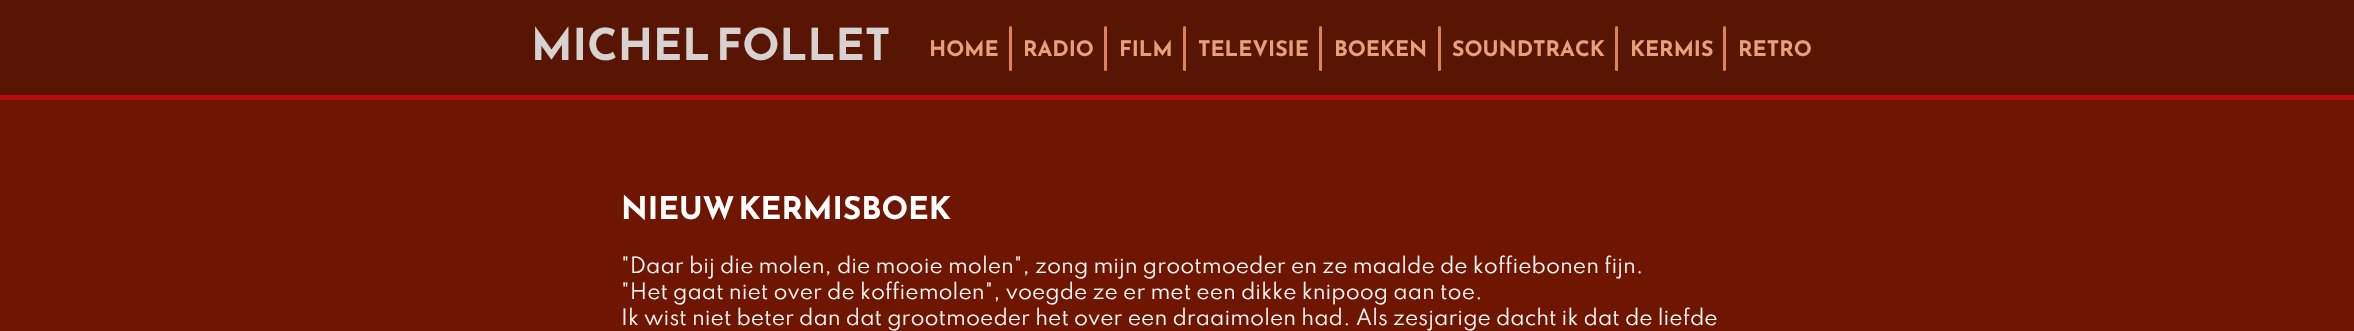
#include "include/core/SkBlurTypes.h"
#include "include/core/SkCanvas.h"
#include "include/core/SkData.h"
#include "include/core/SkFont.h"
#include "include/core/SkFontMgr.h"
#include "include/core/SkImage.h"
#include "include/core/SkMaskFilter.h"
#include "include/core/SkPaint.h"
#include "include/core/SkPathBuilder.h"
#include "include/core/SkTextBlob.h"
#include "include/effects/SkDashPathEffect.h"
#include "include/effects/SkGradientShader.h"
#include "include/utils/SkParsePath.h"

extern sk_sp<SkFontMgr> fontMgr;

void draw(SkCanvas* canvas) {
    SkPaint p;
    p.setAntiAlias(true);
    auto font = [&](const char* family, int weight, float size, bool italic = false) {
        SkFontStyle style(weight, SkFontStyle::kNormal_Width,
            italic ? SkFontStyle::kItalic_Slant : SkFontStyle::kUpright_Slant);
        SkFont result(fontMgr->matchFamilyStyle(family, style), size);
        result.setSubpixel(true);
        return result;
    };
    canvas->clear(0xFF6E1601);
    p.setColor(0xFFB50D0D);
    canvas->drawRect(SkRect::MakeLTRB(0, 95, 2354, 100), p);
    p.setColor(0xFF591504);
    canvas->drawRect(SkRect::MakeLTRB(0, 0, 2354, 95), p);
    auto font1 = font("Reem Kufi", 700, 43.75f);
    p.setColor(0xFFD7D2D0);
    canvas->drawString("MICHEL FOLLET", 531, 60, font1, p);
    auto font2 = font("Reem Kufi", 700, 21.25f);
    p.setColor(0xFFE99F78);
    canvas->drawString("HOME", 929, 56, font2, p);
    p.setColor(0xFFDA8457);
    canvas->drawRoundRect(SkRect::MakeLTRB(1009, 26, 1012, 71), 1.5f, 1.5f, p);
    p.setColor(0xFFE99F78);
    canvas->drawString("RADIO", 1023, 56, font2, p);
    p.setColor(0xFFDA8457);
    canvas->drawRoundRect(SkRect::MakeLTRB(1104, 26, 1107, 71), 1.5f, 1.5f, p);
    p.setColor(0xFFE99F78);
    canvas->drawString("FILM", 1119, 56, font2, p);
    p.setColor(0xFFDA8457);
    canvas->drawRoundRect(SkRect::MakeLTRB(1183, 26, 1186, 71), 1.5f, 1.5f, p);
    p.setColor(0xFFE99F78);
    canvas->drawString("TELEVISIE", 1198, 56, font2, p);
    p.setColor(0xFFDA8457);
    canvas->drawRoundRect(SkRect::MakeLTRB(1319, 26, 1322, 71), 1.5f, 1.5f, p);
    p.setColor(0xFFE99F78);
    canvas->drawString("BOEKEN", 1334, 56, font2, p);
    p.setColor(0xFFDA8457);
    canvas->drawRoundRect(SkRect::MakeLTRB(1438, 26, 1441, 71), 1.5f, 1.5f, p);
    p.setColor(0xFFE99F78);
    canvas->drawString("SOUNDTRACK", 1452, 56, font2, p);
    p.setColor(0xFFDA8457);
    canvas->drawRoundRect(SkRect::MakeLTRB(1615, 26, 1618, 71), 1.5f, 1.5f, p);
    p.setColor(0xFFE99F78);
    canvas->drawString("KERMIS", 1630, 56, font2, p);
    p.setColor(0xFFDA8457);
    canvas->drawRoundRect(SkRect::MakeLTRB(1723, 26, 1726, 71), 1.5f, 1.5f, p);
    p.setColor(0xFFE99F78);
    canvas->drawString("RETRO", 1738, 56, font2, p);
    auto font3 = font("Reem Kufi", 700, 31.25f);
    p.setColor(0xFFFFFFFF);
    canvas->drawString("NIEUW KERMISBOEK", 621, 219, font3, p);
    auto font4 = font("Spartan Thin", 400, 20);
    p.setColor(0xFFF7F7F7);
    {
        const struct { const char* s; float x, y; } items[] = {
            {"\"Daar bij die molen, die mooie molen\", zong mijn grootmoeder en ze maalde de koffiebonen fijn.", 621, 273},
            {"\"Het gaat niet over de koffiemolen\", voegde ze er met een dikke knipoog aan toe.", 621, 299},
            {"Ik wist niet beter dan dat grootmoeder het over een draaimolen had. Als zesjarige dacht ik dat de liefde", 621, 325},
        };
        for (auto [s, x, y] : items) {
            canvas->drawString(s, x, y, font4, p);
        }
    }
}
